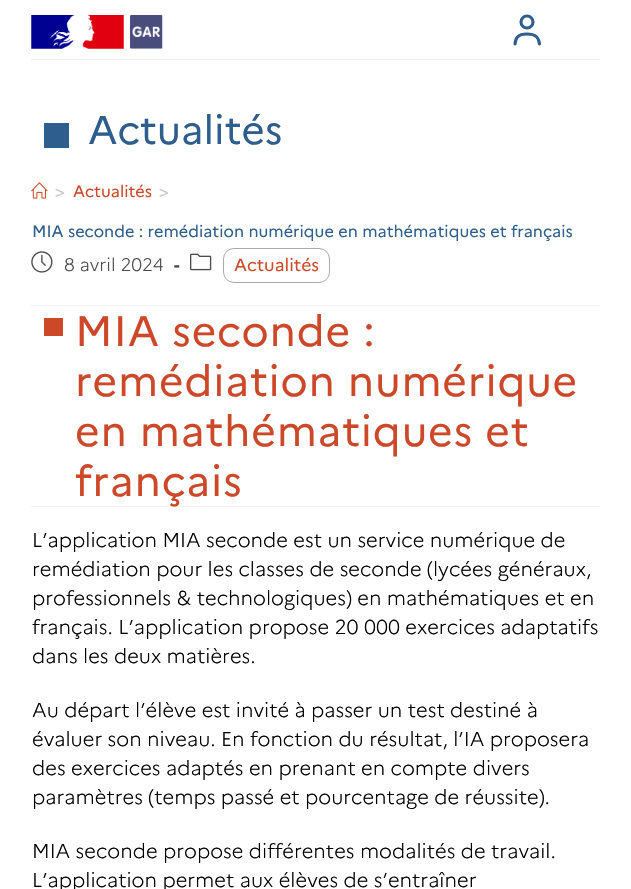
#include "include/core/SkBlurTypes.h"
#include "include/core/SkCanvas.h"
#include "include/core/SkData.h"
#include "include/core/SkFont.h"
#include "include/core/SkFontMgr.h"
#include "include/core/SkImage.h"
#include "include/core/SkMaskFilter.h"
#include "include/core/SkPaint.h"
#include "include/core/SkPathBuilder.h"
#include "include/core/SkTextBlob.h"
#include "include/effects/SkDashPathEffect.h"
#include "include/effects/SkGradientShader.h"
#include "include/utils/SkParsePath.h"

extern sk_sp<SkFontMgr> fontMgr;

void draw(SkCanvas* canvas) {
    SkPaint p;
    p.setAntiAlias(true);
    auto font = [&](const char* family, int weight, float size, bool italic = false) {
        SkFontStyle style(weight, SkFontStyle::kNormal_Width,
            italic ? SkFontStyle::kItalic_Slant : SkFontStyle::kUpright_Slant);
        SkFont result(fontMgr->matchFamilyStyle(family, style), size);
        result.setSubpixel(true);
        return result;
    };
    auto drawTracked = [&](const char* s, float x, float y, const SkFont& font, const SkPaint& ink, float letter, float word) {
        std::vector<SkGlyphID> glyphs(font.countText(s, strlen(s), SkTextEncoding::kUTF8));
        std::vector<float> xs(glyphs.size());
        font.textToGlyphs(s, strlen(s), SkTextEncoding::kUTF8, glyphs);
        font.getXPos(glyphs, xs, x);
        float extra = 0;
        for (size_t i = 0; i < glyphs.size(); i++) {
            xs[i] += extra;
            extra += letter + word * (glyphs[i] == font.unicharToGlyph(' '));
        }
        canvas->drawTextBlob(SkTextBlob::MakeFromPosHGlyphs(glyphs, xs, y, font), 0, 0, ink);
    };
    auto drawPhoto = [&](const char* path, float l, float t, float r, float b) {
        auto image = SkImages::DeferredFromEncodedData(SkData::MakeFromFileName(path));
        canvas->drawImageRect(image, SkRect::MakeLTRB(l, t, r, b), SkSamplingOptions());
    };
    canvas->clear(0xFFFFFFFF);
    drawPhoto("media/1.png", 31, 15, 124, 49);
    drawPhoto("media/2.png", 130, 15, 163, 49);
    p.setStyle(SkPaint::kStroke_Style);
    p.setStrokeWidth(3.1f);
    p.setColor(0xFF2D5E8E);
    canvas->drawCircle(527, 22, 6, p);
    p.setStrokeCap(SkPaint::kRound_Cap);
    canvas->drawPath(SkPathBuilder().moveTo(539.5f, 44).cubicTo(539, 38.5f, 537, 34, 527, 34).cubicTo(517, 34, 515.5f, 38.5f, 515, 44).detach(), p);
    p.setStyle(SkPaint::kFill_Style);
    p.setColor(0xFFF1F1F1);
    canvas->drawRect(SkRect::MakeLTRB(31, 59, 600, 60), p);
    p.setColor(0xFF2D5E8E);
    canvas->drawRect(SkRect::MakeLTRB(44, 123, 69, 148), p);
    auto font1 = font("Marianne", 400, 40);
    canvas->drawString("Actualités", 88, 144, font1, p);
    drawPhoto("media/3.png", 31, 182, 48, 199);
    auto font2 = font("Marianne", 400, 16.25f);
    p.setColor(0xFFC6C6C6);
    canvas->drawString(">", 55, 197, font2, p);
    p.setColor(0xFFCD4828);
    canvas->drawString("Actualités", 73, 197, font2, p);
    p.setColor(0xFFC6C6C6);
    canvas->drawString(">", 159, 197, font2, p);
    p.setColor(0xFF2D5E8E);
    canvas->drawString("MIA seconde : remédiation numérique en mathématiques et français", 32, 237, font2, p);
    p.setColor(0xFFF1F1F1);
    canvas->drawRect(SkRect::MakeLTRB(31, 305, 600, 306), p);
    drawPhoto("media/4.png", 31, 251, 53, 273);
    auto font3 = font("Marianne", 300, 18);
    p.setColor(0xFF4A4A4A);
    canvas->drawString("8 avril 2024", 64, 271, font3, p);
    auto font4 = font("Marianne", 700, 18);
    canvas->drawString("-", 174, 271, font4, p);
    drawPhoto("media/5.png", 190, 253, 212, 271);
    p.setStyle(SkPaint::kStroke_Style);
    p.setStrokeWidth(1);
    p.setStrokeCap(SkPaint::kButt_Cap);
    p.setColor(0xFFAAAAAA);
    canvas->drawRoundRect(SkRect::MakeLTRB(223.5f, 248.5f, 329.5f, 282.5f), 10.5f, 10.5f, p);
    auto font5 = font("Marianne", 400, 17.5f);
    p.setStyle(SkPaint::kFill_Style);
    p.setColor(0xFFCD4828);
    canvas->drawString("Actualités", 234, 271, font5, p);
    p.setColor(0xFFF1F1F1);
    canvas->drawRect(SkRect::MakeLTRB(31, 506, 600, 507), p);
    p.setColor(0xFFCD4828);
    canvas->drawRect(SkRect::MakeLTRB(44, 318, 63, 336), p);
    auto font6 = font("Marianne", 400, 42.5f);
    {
        const struct { const char* s; float x, y; } items[] = {
            {"MIA seconde :", 75, 346},
            {"remédiation numérique", 75, 396},
            {"en mathématiques et", 75, 446},
            {"français", 75, 496},
        };
        for (auto [s, x, y] : items) {
            drawTracked(s, x, y, font6, p, 0.75f, 0);
        }
    }
    auto font7 = font("Marianne", 300, 20);
    p.setColor(0xFF000000);
    {
        const struct { const char* s; float x, y; } items[] = {
            {"L’application MIA seconde est un service numérique de", 32, 547},
            {"remédiation pour les classes de seconde (lycées généraux,", 32, 576},
            {"professionnels & technologiques) en mathématiques et en", 32, 605},
            {"français. L’application propose 20 000 exercices adaptatifs", 32, 634},
            {"dans les deux matières.", 32, 663},
            {"Au départ l’élève est invité à passer un test destiné à", 32, 717},
            {"évaluer son niveau. En fonction du résultat, l’IA proposera", 32, 746},
            {"des exercices adaptés en prenant en compte divers", 32, 775},
            {"paramètres (temps passé et pourcentage de réussite).", 32, 804},
            {"MIA seconde propose différentes modalités de travail.", 32, 858},
            {"L’application permet aux élèves de s’entraîner", 32, 887},
        };
        for (auto [s, x, y] : items) {
            canvas->drawString(s, x, y, font7, p);
        }
    }
}
